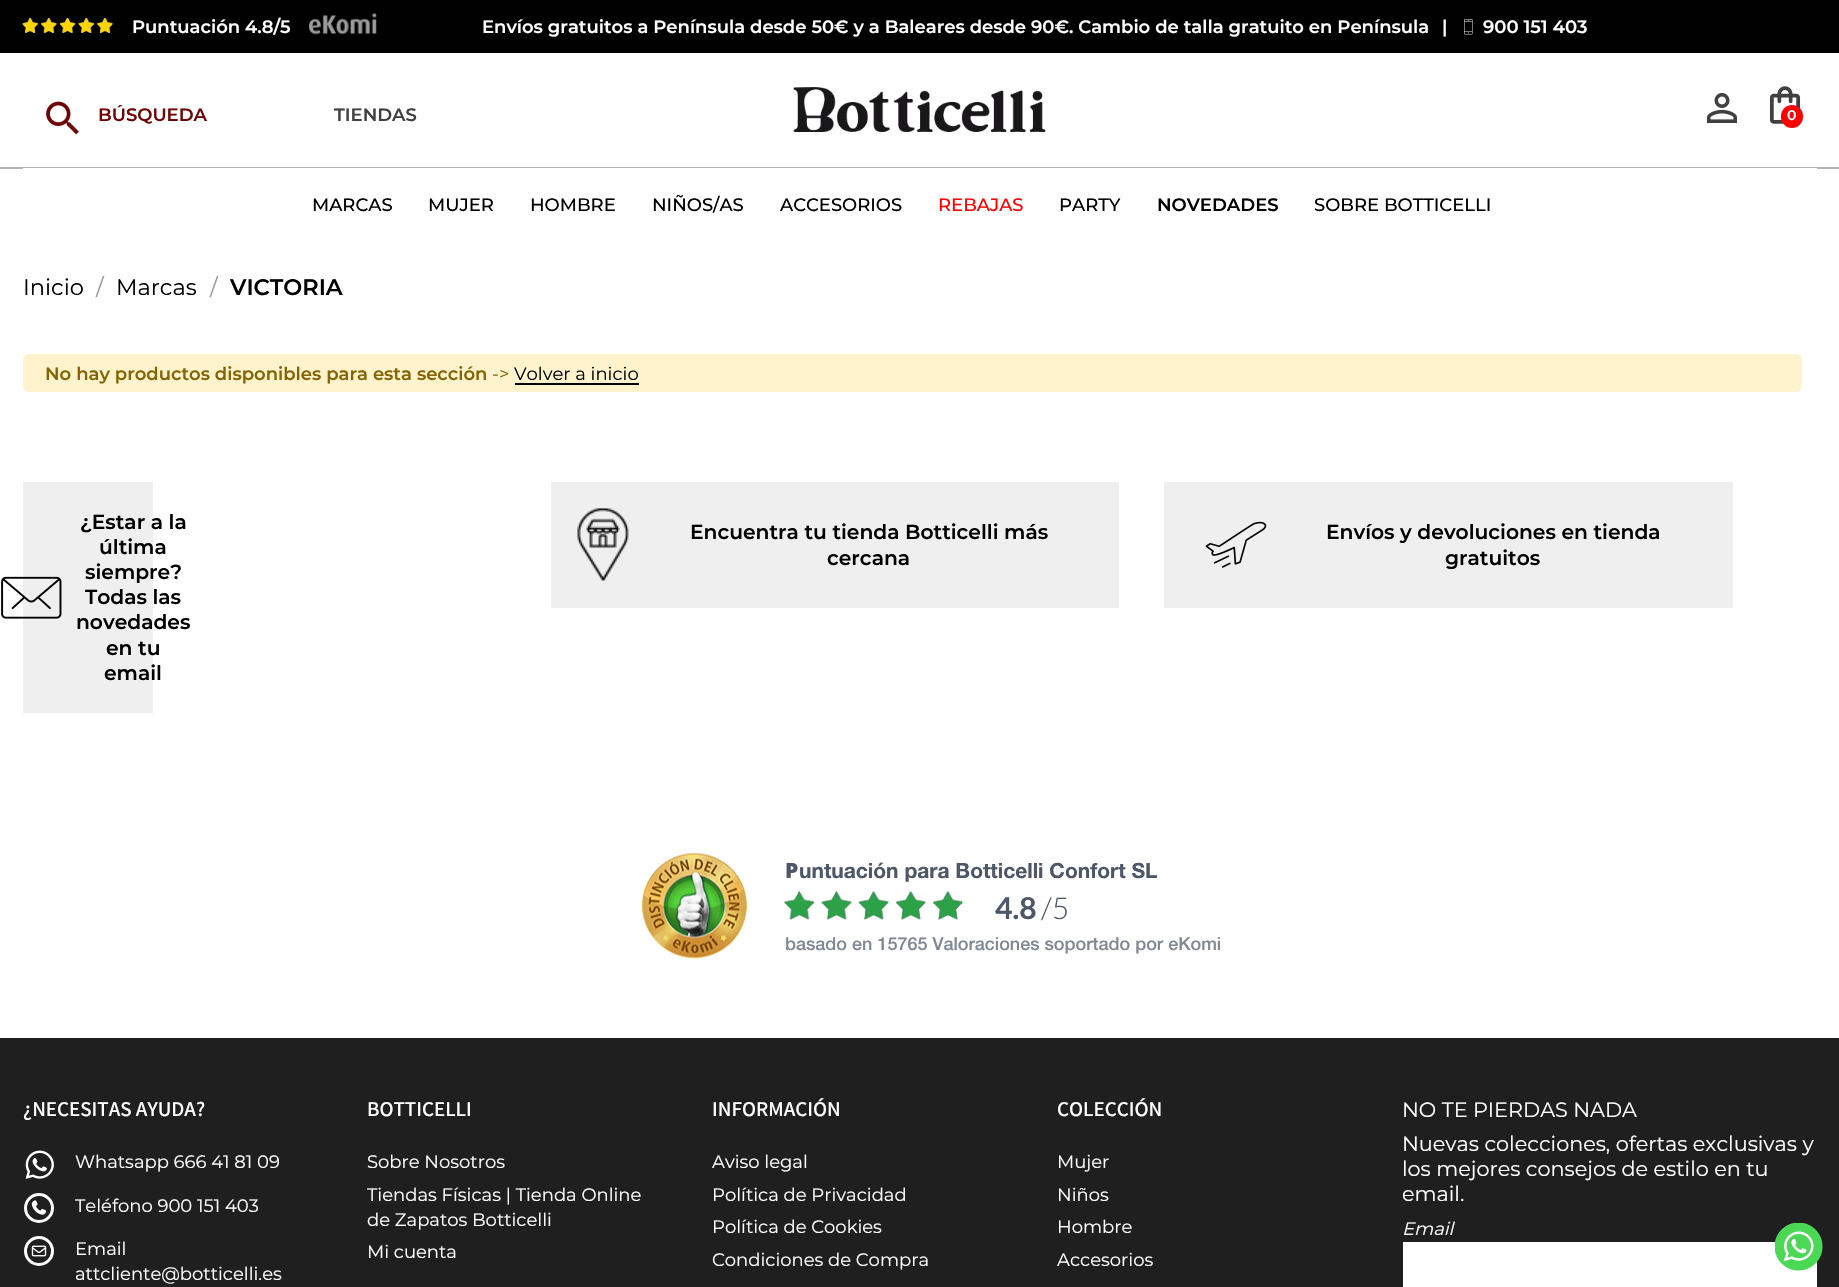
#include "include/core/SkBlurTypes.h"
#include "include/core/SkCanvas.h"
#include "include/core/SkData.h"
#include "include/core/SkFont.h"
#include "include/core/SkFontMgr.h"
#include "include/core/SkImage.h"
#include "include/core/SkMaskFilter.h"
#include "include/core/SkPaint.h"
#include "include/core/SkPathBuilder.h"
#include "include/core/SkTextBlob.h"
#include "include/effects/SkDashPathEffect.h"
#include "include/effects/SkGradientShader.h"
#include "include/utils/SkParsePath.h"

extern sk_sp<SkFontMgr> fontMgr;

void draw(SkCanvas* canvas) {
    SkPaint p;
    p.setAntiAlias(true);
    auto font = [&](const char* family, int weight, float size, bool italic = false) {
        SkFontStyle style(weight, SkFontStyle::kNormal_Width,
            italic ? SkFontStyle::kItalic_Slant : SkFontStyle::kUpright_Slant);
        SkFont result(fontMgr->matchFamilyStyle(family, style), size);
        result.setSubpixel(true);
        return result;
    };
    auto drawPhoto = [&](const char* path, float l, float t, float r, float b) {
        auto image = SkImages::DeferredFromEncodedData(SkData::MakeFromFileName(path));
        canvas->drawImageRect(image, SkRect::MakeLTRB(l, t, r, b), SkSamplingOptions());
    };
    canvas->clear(0xFFFFFFFF);
    p.setColor(0xFF000000);
    canvas->drawRect(SkRect::MakeLTRB(0, 0, 1839, 53), p);
    drawPhoto("media/1.png", 22, 18, 113, 33);
    drawPhoto("media/2.png", 22, 18, 113, 33);
    auto font1 = font("Montserrat", 600, 18);
    p.setColor(0xFFFFFFFF);
    canvas->drawString("Puntuación 4.8/5", 132, 33, font1, p);
    drawPhoto("media/3.png", 309, 13, 377, 35);
    canvas->drawString("Envíos gratuitos a Península desde 50€ y a Baleares desde 90€. Cambio de talla gratuito en Península", 482, 33, font1, p);
    canvas->drawString("|", 1442, 33, font1, p);
    drawPhoto("media/4.png", 1464, 19, 1473, 35);
    canvas->drawString("900 151 403", 1483, 33, font1, p);
    drawPhoto("media/5.png", 46, 101, 79, 135);
    p.setColor(0xFF710505);
    canvas->drawString("BÚSQUEDA", 98, 121, font1, p);
    p.setColor(0xFF404040);
    canvas->drawString("TIENDAS", 334, 121, font1, p);
    drawPhoto("media/6.png", 793, 87, 1046, 132);
    drawPhoto("media/7.png", 1706, 93, 1738, 123);
    drawPhoto("media/8.png", 1769, 86, 1801, 124);
    p.setColor(0xFFFF0000);
    canvas->drawRoundRect(SkRect::MakeLTRB(1781, 105, 1803, 128), 11, 11, p);
    auto font2 = font("Montserrat", 600, 14);
    p.setColor(0xFFFFFFFF);
    canvas->drawString("0", 1787, 120, font2, p);
    p.setColor(0xFFB3B3B3);
    canvas->drawRect(SkRect::MakeLTRB(0, 167, 1839, 169), p);
    p.setColor(0xFFFFFFFF);
    canvas->drawRect(SkRect::MakeLTRB(23, 168, 1817, 169), p);
    auto font3 = font("Montserrat", 500, 18);
    p.setColor(0xFF000000);
    {
        const struct { const char* s; float x, y; } items[] = {
            {"MARCAS", 312, 211},
            {"MUJER", 428, 211},
            {"HOMBRE", 530, 211},
            {"NIÑOS/AS", 652, 211},
            {"ACCESORIOS", 780, 211},
        };
        for (auto [s, x, y] : items) {
            canvas->drawString(s, x, y, font3, p);
        }
    }
    p.setColor(0xFFFF0000);
    canvas->drawString("REBAJAS", 938, 211, font3, p);
    p.setColor(0xFF000000);
    canvas->drawString("PARTY", 1059, 211, font3, p);
    canvas->drawString("NOVEDADES", 1157, 211, font1, p);
    canvas->drawString("SOBRE BOTTICELLI", 1314, 211, font3, p);
    auto font4 = font("Montserrat", 400, 22.5f);
    canvas->drawString("Inicio", 23, 295, font4, p);
    p.setColor(0xFF999999);
    canvas->drawString("/", 96, 295, font4, p);
    p.setColor(0xFF000000);
    canvas->drawString("Marcas", 116, 295, font4, p);
    p.setColor(0xFF999999);
    canvas->drawString("/", 210, 295, font4, p);
    auto font5 = font("Montserrat", 600, 22.5f);
    p.setColor(0xFF000000);
    canvas->drawString("VICTORIA", 230, 295, font5, p);
    p.setColor(0xFFFFF3CD);
    canvas->drawRoundRect(SkRect::MakeLTRB(24, 355, 1801, 391), 5, 5, p);
    p.setStyle(SkPaint::kStroke_Style);
    p.setStrokeWidth(2);
    canvas->drawRoundRect(SkRect::MakeLTRB(24, 355, 1801, 391), 5, 5, p);
    p.setStyle(SkPaint::kFill_Style);
    p.setColor(0xFF856404);
    canvas->drawString("No hay productos disponibles para esta sección", 45, 380, font1, p);
    auto font6 = font("Montserrat", 400, 18);
    canvas->drawString("->", 492, 380, font6, p);
    p.setColor(0xFF000000);
    canvas->drawString("Volver a inicio", 514, 380, font6, p);
    canvas->drawRect(SkRect::MakeLTRB(515, 383, 639, 385), p);
    p.setColor(0xFFEFEFEF);
    canvas->drawRect(SkRect::MakeLTRB(23, 482, 153, 713), p);
    drawPhoto("media/9.png", 1, 576, 62, 619);
    auto font7 = font("Montserrat", 600, 20.25f);
    p.setColor(0xFF000000);
    {
        const struct { const char* s; float x, y; } items[] = {
            {"¿Estar a la", 80, 529},
            {"última", 99, 554},
            {"siempre?", 85, 579},
            {"Todas las", 85, 604},
            {"novedades", 76, 629},
            {"en tu", 106, 655},
            {"email", 104, 680},
        };
        for (auto [s, x, y] : items) {
            canvas->drawString(s, x, y, font7, p);
        }
    }
    p.setColor(0xFFEFEFEF);
    canvas->drawRect(SkRect::MakeLTRB(551, 482, 1119, 608), p);
    drawPhoto("media/10.png", 577, 508, 629, 581);
    p.setColor(0xFF000000);
    canvas->drawString("Encuentra tu tienda Botticelli más", 690, 539, font7, p);
    canvas->drawString("cercana", 827, 565, font7, p);
    p.setColor(0xFFEFEFEF);
    canvas->drawRect(SkRect::MakeLTRB(1164, 482, 1733, 608), p);
    drawPhoto("media/11.png", 1205, 521, 1267, 568);
    p.setColor(0xFF000000);
    canvas->drawString("Envíos y devoluciones en tienda", 1326, 539, font7, p);
    canvas->drawString("gratuitos", 1445, 565, font7, p);
    drawPhoto("media/12.png", 642, 853, 747, 959);
    auto font8 = font("Noto Sans", 900, 21);
    p.setColor(0xFF4E5768);
    canvas->drawString("P", 785, 878, font8, p);
    auto font9 = font("Helvetica Neue", 700, 21);
    canvas->drawString("untuación para Botticelli Confort SL", 799, 878, font9, p);
    drawPhoto("media/13.png", 784, 891, 963, 920);
    drawPhoto("media/14.png", 784, 891, 963, 920);
    auto font10 = font("Lato", 700, 30);
    canvas->drawString("4.8", 995, 919, font10, p);
    auto font11 = font("Lato", 300, 30);
    canvas->drawString("/5", 1041, 919, font11, p);
    auto font12 = font("Helvetica Neue", 500, 18);
    p.setColor(0xFF7F8995);
    canvas->drawString("basado en 15765 Valoraciones soportado por eKomi", 785, 950, font12, p);
    p.setColor(0xFF1F1F1F);
    canvas->drawRect(SkRect::MakeLTRB(0, 1038, 1839, 1287), p);
    auto font13 = font("Mada", 500, 21);
    p.setColor(0xFFFFFFFF);
    canvas->drawString("¿NECESITAS AYUDA?", 23, 1116, font13, p);
    drawPhoto("media/15.png", 25, 1150, 54, 1179);
    canvas->drawString("Whatsapp 666 41 81 09", 75, 1168, font6, p);
    drawPhoto("media/16.png", 31, 1200, 47, 1215);
    p.setStyle(SkPaint::kStroke_Style);
    p.setStrokeWidth(3);
    canvas->drawCircle(39, 1208, 13.5f, p);
    p.setStyle(SkPaint::kFill_Style);
    canvas->drawString("Teléfono 900 151 403", 75, 1212, font6, p);
    drawPhoto("media/17.png", 31, 1245, 47, 1257);
    p.setStyle(SkPaint::kStroke_Style);
    canvas->drawCircle(39, 1251, 13.5f, p);
    p.setStyle(SkPaint::kFill_Style);
    canvas->drawString("Email", 75, 1255, font6, p);
    canvas->drawString("attcliente@botticelli.es", 75, 1280, font6, p);
    canvas->drawString("BOTTICELLI", 367, 1116, font13, p);
    {
        const struct { const char* s; float x, y; } items[] = {
            {"Sobre Nosotros", 367, 1168},
            {"Tiendas Físicas | Tienda Online", 367, 1201},
            {"de Zapatos Botticelli", 367, 1226},
            {"Mi cuenta", 367, 1258},
        };
        for (auto [s, x, y] : items) {
            canvas->drawString(s, x, y, font6, p);
        }
    }
    canvas->drawString("INFORMACIÓN", 712, 1116, font13, p);
    {
        const struct { const char* s; float x, y; } items[] = {
            {"Aviso legal", 712, 1168},
            {"Política de Privacidad", 712, 1201},
            {"Política de Cookies", 712, 1233},
            {"Condiciones de Compra", 712, 1266},
        };
        for (auto [s, x, y] : items) {
            canvas->drawString(s, x, y, font6, p);
        }
    }
    canvas->drawString("COLECCIÓN", 1057, 1116, font13, p);
    {
        const struct { const char* s; float x, y; } items[] = {
            {"Mujer", 1057, 1168},
            {"Niños", 1057, 1201},
            {"Hombre", 1057, 1233},
            {"Accesorios", 1057, 1266},
        };
        for (auto [s, x, y] : items) {
            canvas->drawString(s, x, y, font6, p);
        }
    }
    auto font14 = font("Montserrat", 400, 20.75f);
    {
        const struct { const char* s; float x, y; } items[] = {
            {"NO TE PIERDAS NADA", 1402, 1117},
            {"Nuevas colecciones, ofertas exclusivas y", 1402, 1151},
            {"los mejores consejos de estilo en tu", 1402, 1176},
            {"email.", 1402, 1201},
        };
        for (auto [s, x, y] : items) {
            canvas->drawString(s, x, y, font14, p);
        }
    }
    auto font15 = font("Montserrat", 400, 18, true);
    canvas->drawString("Email", 1402, 1235, font15, p);
    canvas->drawRect(SkRect::MakeLTRB(1403, 1242, 1817, 1287), p);
    drawPhoto("media/18.png", 1775, 1223, 1823, 1271);
}
